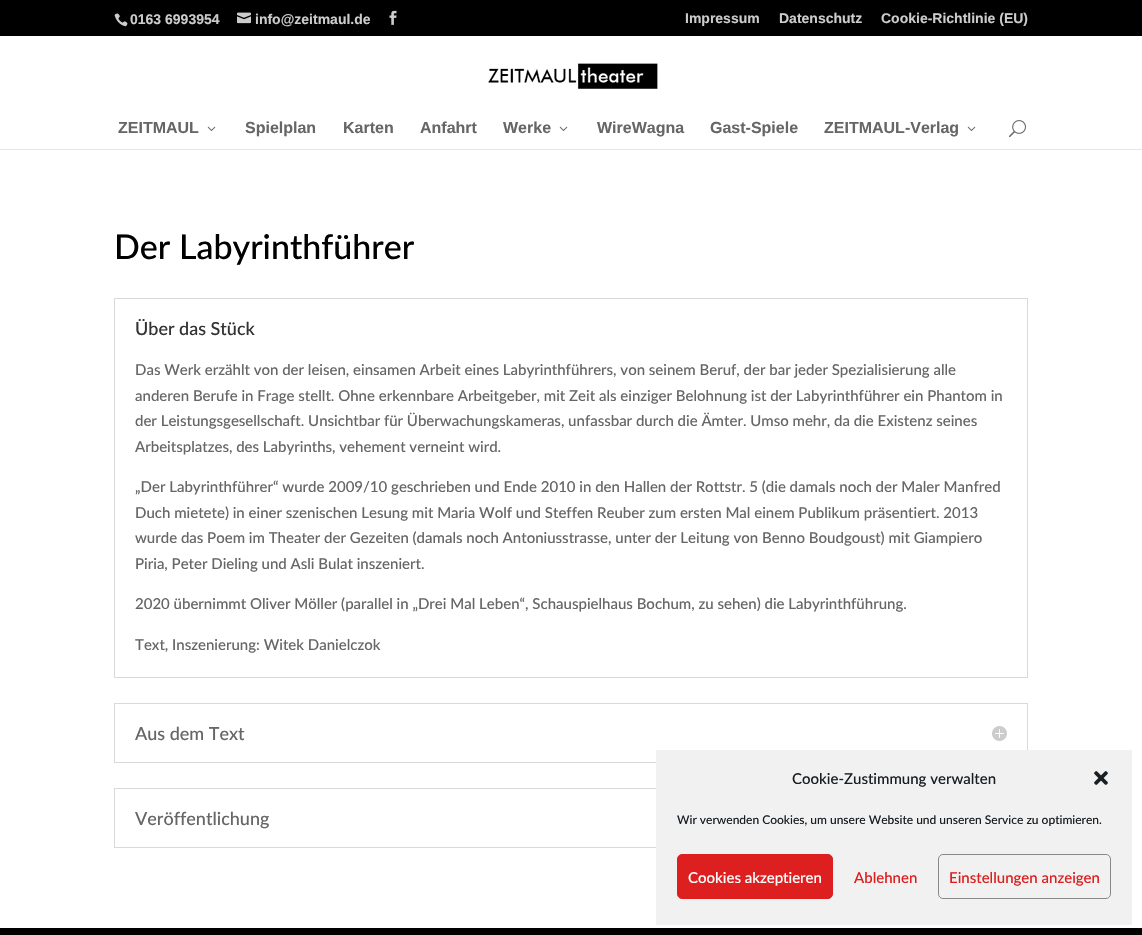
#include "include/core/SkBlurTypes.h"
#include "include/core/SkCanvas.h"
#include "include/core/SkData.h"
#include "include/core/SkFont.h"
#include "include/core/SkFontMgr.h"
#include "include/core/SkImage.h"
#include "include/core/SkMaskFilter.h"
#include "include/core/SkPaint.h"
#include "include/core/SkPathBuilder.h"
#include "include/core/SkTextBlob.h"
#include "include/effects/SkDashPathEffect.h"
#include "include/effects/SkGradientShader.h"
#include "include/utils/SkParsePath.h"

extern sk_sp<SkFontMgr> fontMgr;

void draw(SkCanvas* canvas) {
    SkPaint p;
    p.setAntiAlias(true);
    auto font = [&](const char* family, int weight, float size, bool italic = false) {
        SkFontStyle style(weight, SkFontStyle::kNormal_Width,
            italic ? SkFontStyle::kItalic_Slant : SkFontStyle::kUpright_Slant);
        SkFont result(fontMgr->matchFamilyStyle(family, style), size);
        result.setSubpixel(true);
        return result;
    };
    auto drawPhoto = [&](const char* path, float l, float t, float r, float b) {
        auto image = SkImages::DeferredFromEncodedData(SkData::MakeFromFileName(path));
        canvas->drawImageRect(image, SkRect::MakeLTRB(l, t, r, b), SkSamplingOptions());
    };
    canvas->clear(0xFFFFFFFF);
    p.setColor(0xFF000000);
    canvas->drawRect(SkRect::MakeLTRB(0, 0, 1142, 36), p);
    drawPhoto("media/1.png", 114, 13, 128, 27);
    auto font1 = font("Liberation Sans", 700, 14);
    p.setColor(0xFFCCCCCC);
    canvas->drawString("0163 6993954", 130, 24, font1, p);
    drawPhoto("media/2.png", 237, 12, 251, 24);
    canvas->drawString("info@zeitmaul.de", 255, 24, font1, p);
    drawPhoto("media/3.png", 389, 10, 397, 25);
    {
        const struct { const char* s; float x, y; } items[] = {
            {"Impressum", 685, 23},
            {"Datenschutz", 779, 23},
            {"Cookie-Richtlinie (EU)", 881, 23},
        };
        for (auto [s, x, y] : items) {
            canvas->drawString(s, x, y, font1, p);
        }
    }
    p.setColor(0xFFE6E6E6);
    canvas->drawRect(SkRect::MakeLTRB(0, 149, 1142, 150), p);
    drawPhoto("media/4.png", 488, 63, 658, 89);
    auto font2 = font("Liberation Sans", 700, 16);
    p.setColor(0xFF666666);
    canvas->drawString("ZEITMAUL", 118, 133, font2, p);
    drawPhoto("media/5.png", 207, 126, 216, 131);
    {
        const struct { const char* s; float x, y; } items[] = {
            {"Spielplan", 245, 133},
            {"Karten", 343, 133},
            {"Anfahrt", 420, 133},
            {"Werke", 503, 133},
        };
        for (auto [s, x, y] : items) {
            canvas->drawString(s, x, y, font2, p);
        }
    }
    drawPhoto("media/5.png", 559, 126, 568, 131);
    {
        const struct { const char* s; float x, y; } items[] = {
            {"WireWagna", 597, 133},
            {"Gast-Spiele", 710, 133},
            {"ZEITMAUL-Verlag", 824, 133},
        };
        for (auto [s, x, y] : items) {
            canvas->drawString(s, x, y, font2, p);
        }
    }
    drawPhoto("media/5.png", 967, 126, 976, 131);
    drawPhoto("media/6.png", 1009, 120, 1026, 138);
    auto font3 = font("Lato", 500, 34);
    p.setColor(0xFF000000);
    canvas->drawString("Der Labyrinthführer", 114, 259, font3, p);
    p.setStyle(SkPaint::kStroke_Style);
    p.setStrokeWidth(1);
    p.setColor(0xFFD9D9D9);
    canvas->drawRect(SkRect::MakeLTRB(114.5f, 298.5f, 1027.5f, 677.5f), p);
    auto font4 = font("Lato", 500, 18);
    p.setStyle(SkPaint::kFill_Style);
    p.setColor(0xFF333333);
    canvas->drawString("Über das Stück", 135, 335, font4, p);
    auto font5 = font("Lato", 500, 15);
    p.setColor(0xFF666666);
    {
        const struct { const char* s; float x, y; } items[] = {
            {"Das Werk erzählt von der leisen, einsamen Arbeit eines Labyrinthführers, von seinem Beruf, der bar jeder Spezialisierung alle", 135, 375},
            {"anderen Berufe in Frage stellt. Ohne erkennbare Arbeitgeber, mit Zeit als einziger Belohnung ist der Labyrinthführer ein Phantom in", 135, 401},
            {"der Leistungsgesellschaft. Unsichtbar für Überwachungskameras, unfassbar durch die Ämter. Umso mehr, da die Existenz seines", 135, 426},
            {"Arbeitsplatzes, des Labyrinths, vehement verneint wird.", 135, 452},
            {"„Der Labyrinthführer“ wurde 2009/10 geschrieben und Ende 2010 in den Hallen der Rottstr. 5 (die damals noch der Maler Manfred", 135, 492},
            {"Duch mietete) in einer szenischen Lesung mit Maria Wolf und Steffen Reuber zum ersten Mal einem Publikum präsentiert. 2013", 135, 518},
            {"wurde das Poem im Theater der Gezeiten (damals noch Antoniusstrasse, unter der Leitung von Benno Boudgoust) mit Giampiero", 135, 543},
            {"Piria, Peter Dieling und Asli Bulat inszeniert.", 135, 569},
            {"2020 übernimmt Oliver Möller (parallel in „Drei Mal Leben“, Schauspielhaus Bochum, zu sehen) die Labyrinthführung.", 135, 609},
            {"Text, Inszenierung: Witek Danielczok", 135, 650},
        };
        for (auto [s, x, y] : items) {
            canvas->drawString(s, x, y, font5, p);
        }
    }
    p.setStyle(SkPaint::kStroke_Style);
    p.setColor(0xFFD9D9D9);
    canvas->drawRect(SkRect::MakeLTRB(114.5f, 703.5f, 1027.5f, 762.5f), p);
    p.setStyle(SkPaint::kFill_Style);
    p.setColor(0xFF666666);
    canvas->drawString("Aus dem Text", 135, 740, font4, p);
    drawPhoto("media/7.png", 992, 726, 1007, 741);
    p.setStyle(SkPaint::kStroke_Style);
    p.setColor(0xFFD9D9D9);
    canvas->drawRect(SkRect::MakeLTRB(114.5f, 788.5f, 1027.5f, 847.5f), p);
    p.setStyle(SkPaint::kFill_Style);
    p.setColor(0xFF666666);
    canvas->drawString("Veröffentlichung", 135, 825, font4, p);
    p.setColor(0xFF000000);
    canvas->drawRect(SkRect::MakeLTRB(0, 928, 1142, 935), p);
    p.setColor(0xFFF1F1F1);
    canvas->drawRect(SkRect::MakeLTRB(656, 750, 1132, 925), p);
    p.setColor(0xFF191E23);
    canvas->drawString("Cookie-Zustimmung verwalten", 792, 784, font5, p);
    drawPhoto("media/8.png", 1094, 771, 1108, 785);
    auto font6 = font("Lato", 500, 12);
    canvas->drawString("Wir verwenden Cookies, um unsere Website und unseren Service zu optimieren.", 677, 824, font6, p);
    p.setColor(0xFFDD1F1F);
    canvas->drawRoundRect(SkRect::MakeLTRB(677.5f, 854.5f, 832.5f, 898.5f), 4.5f, 4.5f, p);
    p.setStyle(SkPaint::kStroke_Style);
    canvas->drawRoundRect(SkRect::MakeLTRB(677.5f, 854.5f, 832.5f, 898.5f), 4.5f, 4.5f, p);
    p.setStyle(SkPaint::kFill_Style);
    p.setColor(0xFFFFFFFF);
    canvas->drawString("Cookies akzeptieren", 688, 883, font5, p);
    p.setColor(0xFFDD1F1F);
    canvas->drawString("Ablehnen", 854, 883, font5, p);
    p.setStyle(SkPaint::kStroke_Style);
    p.setColor(0xFF898989);
    canvas->drawRoundRect(SkRect::MakeLTRB(938.5f, 854.5f, 1110.5f, 898.5f), 4.5f, 4.5f, p);
    p.setStyle(SkPaint::kFill_Style);
    p.setColor(0xFFDD1F1F);
    canvas->drawString("Einstellungen anzeigen", 949, 883, font5, p);
}
